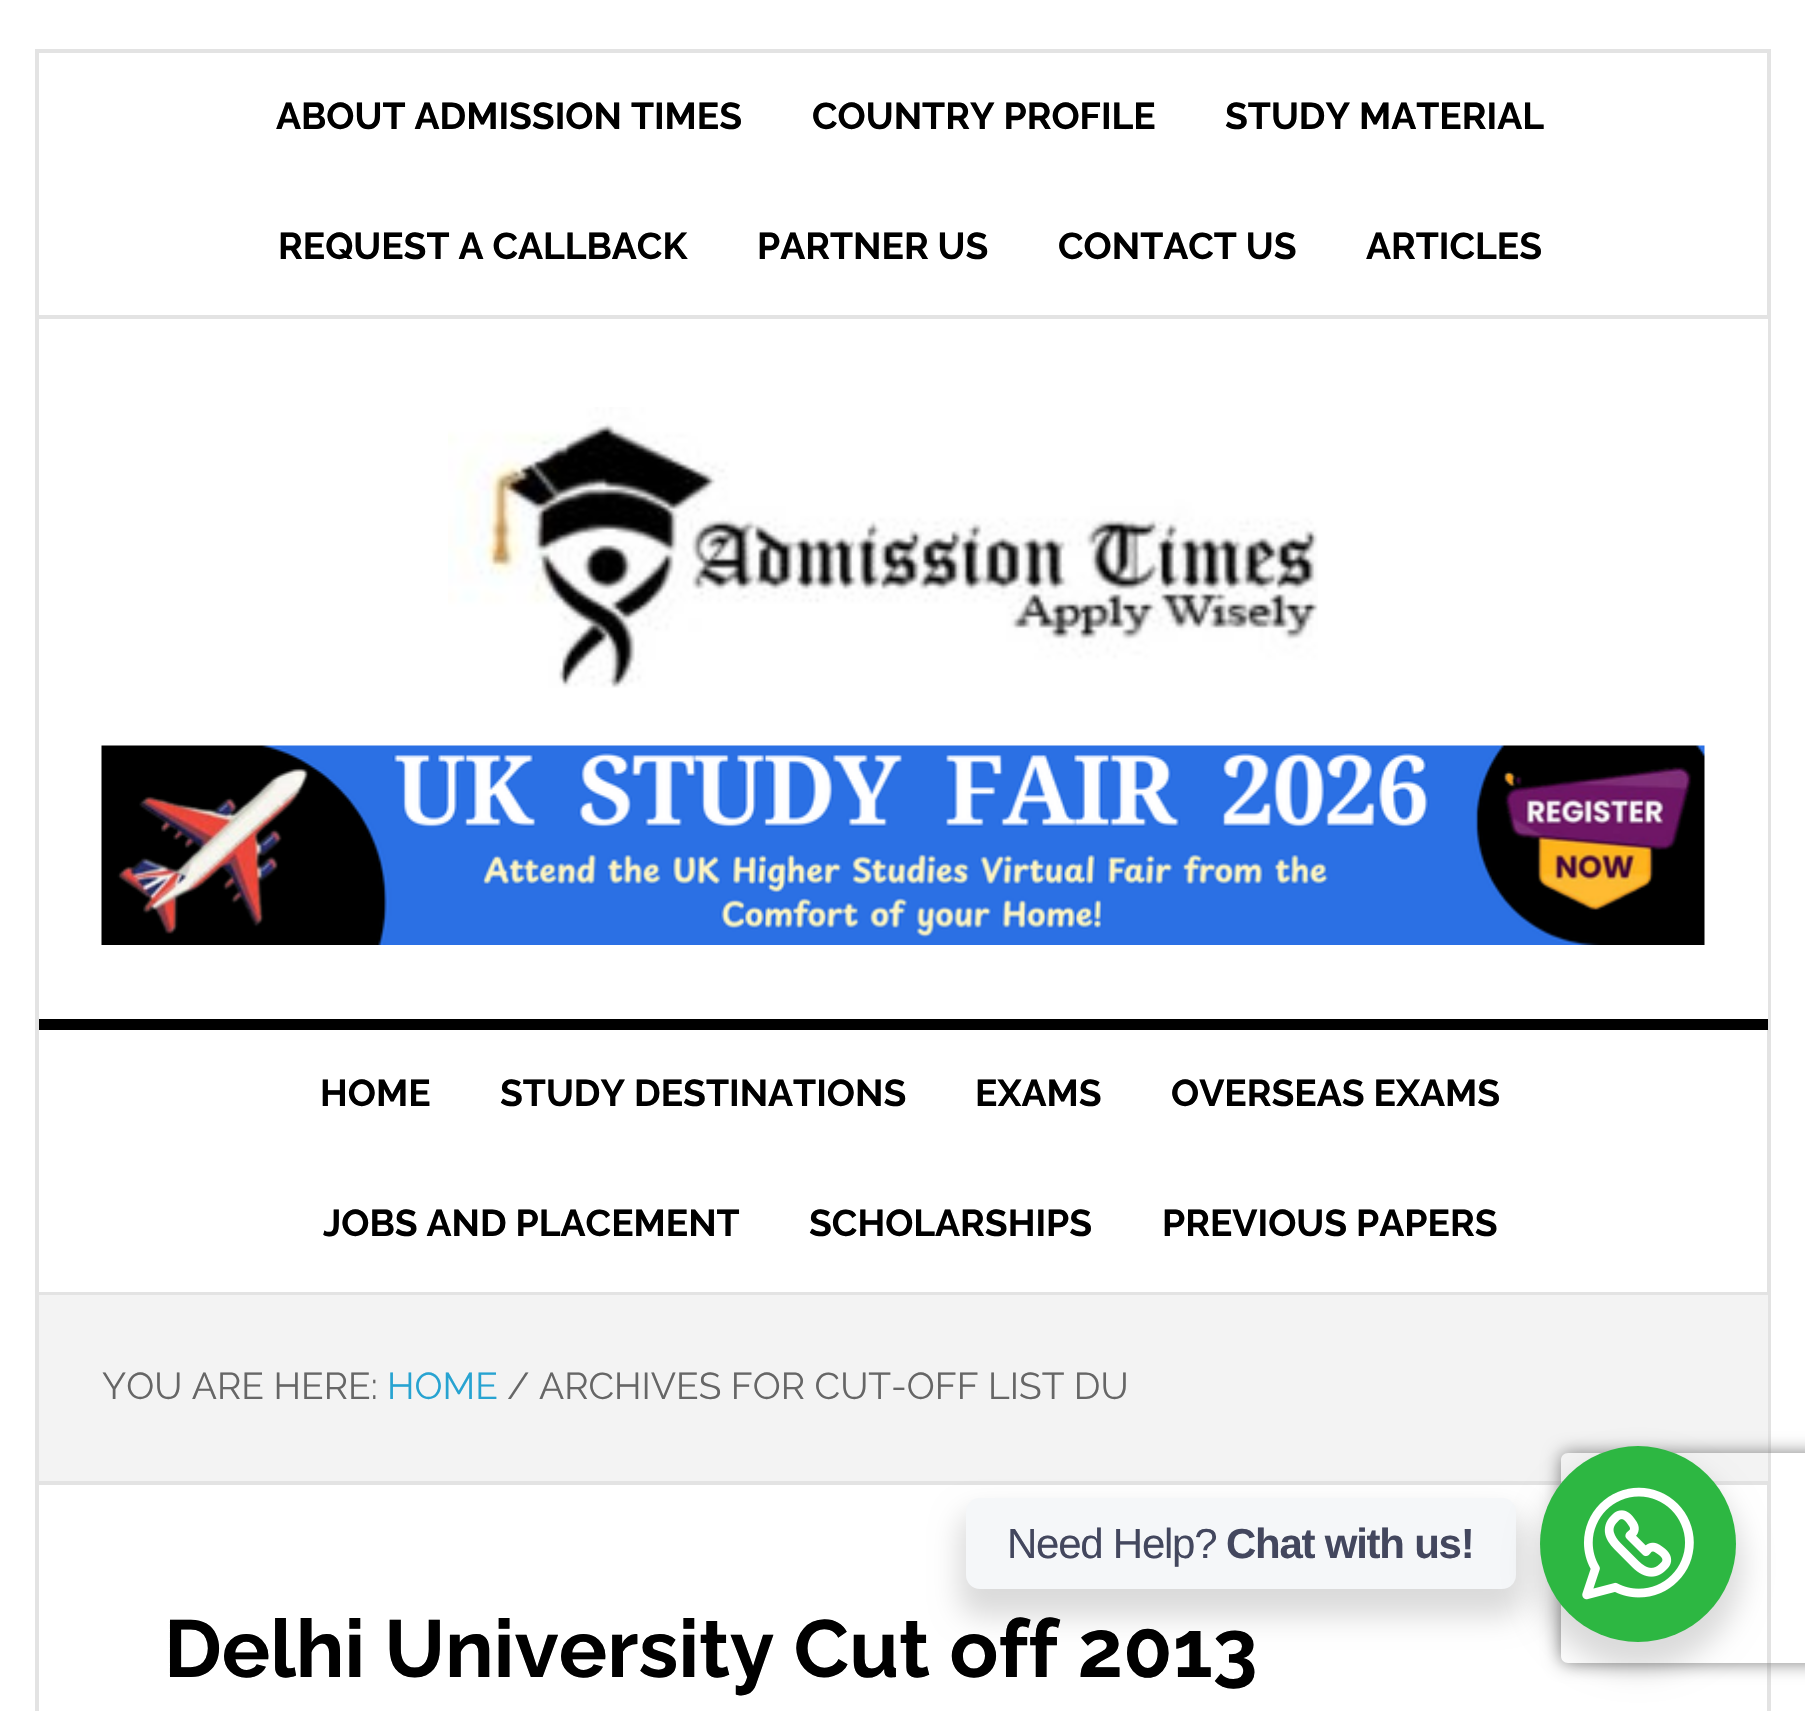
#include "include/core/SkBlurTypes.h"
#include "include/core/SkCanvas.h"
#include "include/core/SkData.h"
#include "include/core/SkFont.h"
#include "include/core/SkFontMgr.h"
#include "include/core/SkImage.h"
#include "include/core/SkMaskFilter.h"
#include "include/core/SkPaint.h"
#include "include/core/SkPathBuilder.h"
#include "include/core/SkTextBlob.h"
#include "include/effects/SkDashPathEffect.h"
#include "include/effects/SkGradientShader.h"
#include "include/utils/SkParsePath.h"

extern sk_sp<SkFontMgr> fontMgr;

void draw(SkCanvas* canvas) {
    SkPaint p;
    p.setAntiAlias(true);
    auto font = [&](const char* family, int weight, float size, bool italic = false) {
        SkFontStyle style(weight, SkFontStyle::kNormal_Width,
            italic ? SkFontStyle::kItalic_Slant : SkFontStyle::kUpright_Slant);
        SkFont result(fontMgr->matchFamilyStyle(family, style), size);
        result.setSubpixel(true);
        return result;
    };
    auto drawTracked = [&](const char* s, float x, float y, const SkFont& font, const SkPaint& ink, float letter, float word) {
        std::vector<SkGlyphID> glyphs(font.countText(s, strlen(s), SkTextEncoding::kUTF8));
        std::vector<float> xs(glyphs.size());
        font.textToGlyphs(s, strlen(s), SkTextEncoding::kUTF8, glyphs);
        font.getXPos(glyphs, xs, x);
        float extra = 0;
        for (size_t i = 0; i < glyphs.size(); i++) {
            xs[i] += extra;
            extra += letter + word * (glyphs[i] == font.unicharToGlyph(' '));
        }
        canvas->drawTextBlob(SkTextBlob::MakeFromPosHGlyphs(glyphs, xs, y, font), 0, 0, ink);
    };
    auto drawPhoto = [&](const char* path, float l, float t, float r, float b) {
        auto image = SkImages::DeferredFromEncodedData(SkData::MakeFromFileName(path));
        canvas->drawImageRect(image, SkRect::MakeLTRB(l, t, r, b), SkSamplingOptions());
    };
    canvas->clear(0xFFFFFFFF);
    p.setStyle(SkPaint::kStroke_Style);
    p.setStrokeWidth(4);
    p.setColor(0xFFE3E3E3);
    canvas->drawRect(SkRect::MakeLTRB(37, 51, 1769, 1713), p);
    p.setStyle(SkPaint::kFill_Style);
    canvas->drawRect(SkRect::MakeLTRB(39, 315, 1768, 319), p);
    auto font1 = font("Raleway", 700, 37.25f);
    p.setColor(0xFF000000);
    {
        const struct { const char* s; float x, y; } items[] = {
            {"ABOUT ADMISSION TIMES", 276, 129},
            {"COUNTRY PROFILE", 812, 129},
            {"STUDY MATERIAL", 1225, 129},
            {"REQUEST A CALLBACK", 278, 259},
            {"PARTNER US", 757, 259},
            {"CONTACT US", 1058, 259},
            {"ARTICLES", 1366, 259},
        };
        for (auto [s, x, y] : items) {
            canvas->drawString(s, x, y, font1, p);
        }
    }
    p.setColor(0xFFFFFFFF);
    canvas->drawRect(SkRect::MakeLTRB(1767, 319, 1768, 1019), p);
    drawPhoto("media/1.png", 448, 407, 1318, 688);
    drawPhoto("media/2.png", 101, 745, 1705, 945);
    p.setColor(0xFF000000);
    canvas->drawRect(SkRect::MakeLTRB(39, 1019, 1768, 1030), p);
    p.setColor(0xFFE3E3E3);
    canvas->drawRect(SkRect::MakeLTRB(39, 1292, 1768, 1295), p);
    p.setColor(0xFF000000);
    {
        const struct { const char* s; float x, y; } items[] = {
            {"HOME", 320, 1106},
            {"STUDY DESTINATIONS", 500, 1106},
            {"EXAMS", 975, 1106},
            {"OVERSEAS EXAMS", 1171, 1106},
            {"JOBS AND PLACEMENT", 323, 1236},
            {"SCHOLARSHIPS", 809, 1236},
            {"PREVIOUS PAPERS", 1162, 1236},
        };
        for (auto [s, x, y] : items) {
            canvas->drawString(s, x, y, font1, p);
        }
    }
    p.setColor(0xFFF3F3F3);
    canvas->drawRect(SkRect::MakeLTRB(39, 1295, 1768, 1481), p);
    p.setColor(0xFFE3E3E3);
    canvas->drawRect(SkRect::MakeLTRB(39, 1481, 1768, 1485), p);
    auto font2 = font("Raleway", 400, 37.25f);
    p.setColor(0xFF666666);
    canvas->drawString("YOU ARE HERE:", 102, 1399, font2, p);
    p.setColor(0xFF27A3D1);
    canvas->drawString("HOME", 387, 1399, font2, p);
    p.setColor(0xFF666666);
    canvas->drawString("/ ARCHIVES FOR CUT-OFF LIST DU", 507, 1399, font2, p);
    auto font3 = font("Raleway", 700, 80.75f);
    p.setColor(0xFF000000);
    canvas->drawString("Delhi University Cut off 2013", 164, 1677, font3, p);
    canvas->save();
    canvas->clipPath(SkPathBuilder(SkPathFillType::kEvenOdd).moveTo(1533, 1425).lineTo(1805, 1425).lineTo(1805, 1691).lineTo(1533, 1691).close().moveTo(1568, 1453).lineTo(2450, 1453).cubicTo(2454, 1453, 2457, 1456, 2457, 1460).lineTo(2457, 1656).cubicTo(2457, 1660, 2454, 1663, 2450, 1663).lineTo(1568, 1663).cubicTo(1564, 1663, 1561, 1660, 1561, 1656).lineTo(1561, 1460).cubicTo(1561, 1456, 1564, 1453, 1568, 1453).close().detach(), true);
    p.setColor(0xFF808080);
    p.setMaskFilter(SkMaskFilter::MakeBlur(kNormal_SkBlurStyle, 9));
    canvas->drawRoundRect(SkRect::MakeLTRB(1561, 1453, 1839, 1663), 7, 7, p);
    p.setMaskFilter(nullptr);
    canvas->restore();
    p.setColor(0x24000000);
    p.setMaskFilter(SkMaskFilter::MakeBlur(kNormal_SkBlurStyle, 14));
    canvas->drawRoundRect(SkRect::MakeLTRB(959, 1512, 1523, 1617), 21, 21, p);
    p.setMaskFilter(nullptr);
    p.setColor(0xFFF5F7F9);
    canvas->drawRoundRect(SkRect::MakeLTRB(966, 1498, 1516, 1589), 14, 14, p);
    auto font4 = font("Liberation Sans", 400, 42);
    p.setColor(0xFF43475E);
    drawTracked("Need Help?", 1007, 1558, font4, p, -1.25f, 0);
    auto font5 = font("Liberation Sans", 700, 42);
    drawTracked("Chat with us!", 1226, 1558, font5, p, -1.25f, 0);
    p.setColor(0x24000000);
    p.setMaskFilter(SkMaskFilter::MakeBlur(kNormal_SkBlurStyle, 14));
    canvas->drawRoundRect(SkRect::MakeLTRB(1533, 1460, 1743, 1670), 105, 105, p);
    p.setMaskFilter(nullptr);
    p.setColor(0xFF2DB742);
    canvas->drawCircle(1638, 1544, 98, p);
    drawPhoto("media/3.png", 1582, 1487, 1694, 1600);
}
